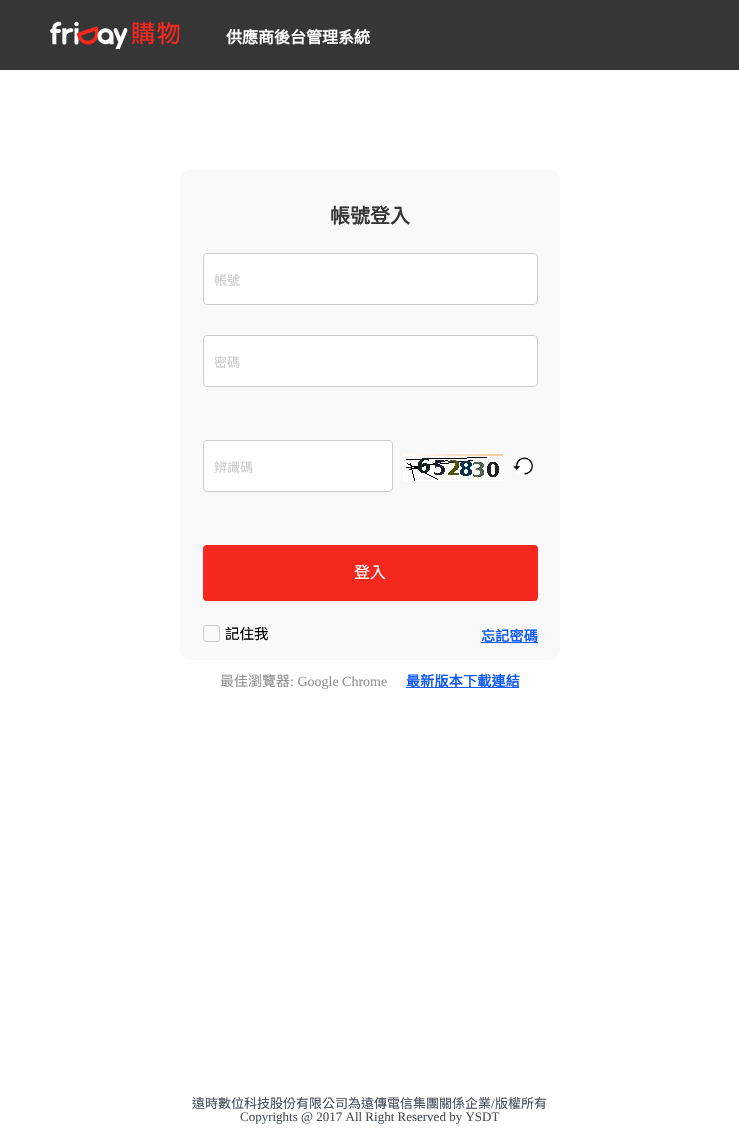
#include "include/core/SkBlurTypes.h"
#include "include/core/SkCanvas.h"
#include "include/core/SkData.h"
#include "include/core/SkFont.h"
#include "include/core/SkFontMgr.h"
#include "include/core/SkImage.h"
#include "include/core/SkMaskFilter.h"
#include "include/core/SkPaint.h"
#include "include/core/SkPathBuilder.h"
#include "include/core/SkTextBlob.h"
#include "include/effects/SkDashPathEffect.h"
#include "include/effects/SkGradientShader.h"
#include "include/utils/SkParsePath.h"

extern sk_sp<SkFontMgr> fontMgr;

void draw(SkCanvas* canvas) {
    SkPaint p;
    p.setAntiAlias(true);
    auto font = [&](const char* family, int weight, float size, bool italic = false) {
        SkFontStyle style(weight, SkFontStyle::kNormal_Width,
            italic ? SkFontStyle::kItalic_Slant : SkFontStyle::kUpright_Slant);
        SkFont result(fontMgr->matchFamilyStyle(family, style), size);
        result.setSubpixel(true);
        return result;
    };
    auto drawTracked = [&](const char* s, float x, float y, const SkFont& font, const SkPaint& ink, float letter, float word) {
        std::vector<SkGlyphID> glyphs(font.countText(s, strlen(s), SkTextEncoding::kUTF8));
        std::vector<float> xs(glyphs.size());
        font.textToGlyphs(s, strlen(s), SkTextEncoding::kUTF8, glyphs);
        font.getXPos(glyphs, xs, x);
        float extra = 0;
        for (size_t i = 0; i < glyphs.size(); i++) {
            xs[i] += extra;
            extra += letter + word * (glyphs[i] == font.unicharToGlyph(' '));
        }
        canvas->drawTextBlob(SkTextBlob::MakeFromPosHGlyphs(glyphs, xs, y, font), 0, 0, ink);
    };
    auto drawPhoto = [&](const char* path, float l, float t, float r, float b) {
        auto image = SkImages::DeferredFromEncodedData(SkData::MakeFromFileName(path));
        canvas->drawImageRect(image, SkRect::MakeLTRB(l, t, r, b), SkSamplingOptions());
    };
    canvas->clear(0xFFFFFFFF);
    p.setColor(0xFF353635);
    canvas->drawRect(SkRect::MakeLTRB(0, 0, 739, 70), p);
    drawPhoto("media/1.png", 50, 21, 180, 49);
    auto font1 = font("Noto Sans CJK TC", 700, 16);
    p.setColor(0xFFFFFFFF);
    canvas->drawString("供應商後台管理系統", 226, 43, font1, p);
    p.setColor(0xFFF9F9F9);
    canvas->drawRoundRect(SkRect::MakeLTRB(180, 170, 560, 660), 10, 10, p);
    auto font2 = font("Noto Sans CJK TC", 700, 20);
    p.setColor(0xFF353635);
    canvas->drawString("帳號登入", 330, 223, font2, p);
    p.setColor(0xFFFFFFFF);
    canvas->drawRoundRect(SkRect::MakeLTRB(203.5f, 253.5f, 537.5f, 304.5f), 3.5f, 3.5f, p);
    p.setStyle(SkPaint::kStroke_Style);
    p.setStrokeWidth(1);
    p.setColor(0xFFCCCCCC);
    canvas->drawRoundRect(SkRect::MakeLTRB(203.5f, 253.5f, 537.5f, 304.5f), 3.5f, 3.5f, p);
    auto font3 = font("Noto Sans CJK TC", 400, 13);
    p.setStyle(SkPaint::kFill_Style);
    canvas->drawString("帳號", 214, 285, font3, p);
    p.setColor(0xFFFFFFFF);
    canvas->drawRoundRect(SkRect::MakeLTRB(203.5f, 335.5f, 537.5f, 386.5f), 3.5f, 3.5f, p);
    p.setStyle(SkPaint::kStroke_Style);
    p.setColor(0xFFCCCCCC);
    canvas->drawRoundRect(SkRect::MakeLTRB(203.5f, 335.5f, 537.5f, 386.5f), 3.5f, 3.5f, p);
    p.setStyle(SkPaint::kFill_Style);
    canvas->drawString("密碼", 214, 367, font3, p);
    p.setColor(0xFFFFFFFF);
    canvas->drawRoundRect(SkRect::MakeLTRB(203.5f, 440.5f, 392.5f, 491.5f), 3.5f, 3.5f, p);
    p.setStyle(SkPaint::kStroke_Style);
    p.setColor(0xFFCCCCCC);
    canvas->drawRoundRect(SkRect::MakeLTRB(203.5f, 440.5f, 392.5f, 491.5f), 3.5f, 3.5f, p);
    p.setStyle(SkPaint::kFill_Style);
    canvas->drawString("辨識碼", 214, 472, font3, p);
    {
        const SkColor colors[] = {0xFFFFFFFF, 0xFFFFCC99};
        const float stops[] = {0, 1};
        const SkPoint ends[] = {{403, 467}, {503, 467}};
        p.setShader(SkGradientShader::MakeLinear(ends, colors, stops, 2, SkTileMode::kClamp));
        p.setAlpha(255);
    }
    canvas->drawRect(SkRect::MakeLTRB(403, 454, 503, 456), p);
    drawPhoto("media/2.png", 403, 456, 503, 481);
    p.setShader(nullptr);
    p.setColor(0xFFFFFFFF);
    canvas->drawCircle(523, 466, 10, p);
    drawPhoto("media/3.png", 513, 457, 533, 475);
    p.setColor(0xFFF5281E);
    canvas->drawRoundRect(SkRect::MakeLTRB(203, 545, 538, 601), 4, 4, p);
    auto font4 = font("Noto Sans CJK TC", 400, 16);
    p.setColor(0xFFFFFFFF);
    canvas->drawString("登入", 354, 578, font4, p);
    p.setStyle(SkPaint::kStroke_Style);
    p.setColor(0xFFCCCCCC);
    canvas->drawRoundRect(SkRect::MakeLTRB(203.5f, 625.5f, 219.5f, 641.5f), 2.5f, 2.5f, p);
    auto font5 = font("Noto Sans CJK TC", 400, 14.5f);
    p.setStyle(SkPaint::kFill_Style);
    p.setColor(0xFF000000);
    canvas->drawString("記住我", 225, 639, font5, p);
    p.setColor(0xFF0F5BF6);
    canvas->drawRect(SkRect::MakeLTRB(481, 642, 538, 643), p);
    auto font6 = font("Noto Sans CJK TC", 700, 14);
    drawTracked("忘記密碼", 481, 641, font6, p, 0.25f, 0);
    auto font7 = font("Noto Sans CJK TC", 400, 14);
    p.setColor(0xFF919191);
    canvas->drawString("最佳瀏覽器", 220, 686, font7, p);
    auto font8 = font("Liberation Serif", 400, 14);
    canvas->drawString(": Google Chrome", 290, 686, font8, p);
    p.setColor(0xFF0F5BF6);
    canvas->drawRect(SkRect::MakeLTRB(406, 687, 519, 688), p);
    drawTracked("最新版本下載連結", 406, 686, font6, p, 0.25f, 0);
    p.setColor(0xFF47505B);
    canvas->drawString("遠時數位科技股份有限公司為遠傳電信集團關係企業", 192, 1108, font3, p);
    auto font9 = font("Liberation Serif", 400, 13);
    canvas->drawString("/", 491, 1108, font9, p);
    canvas->drawString("版權所有", 495, 1108, font3, p);
    canvas->drawString("Copyrights @ 2017 All Right Reserved by YSDT", 240, 1121, font9, p);
}
